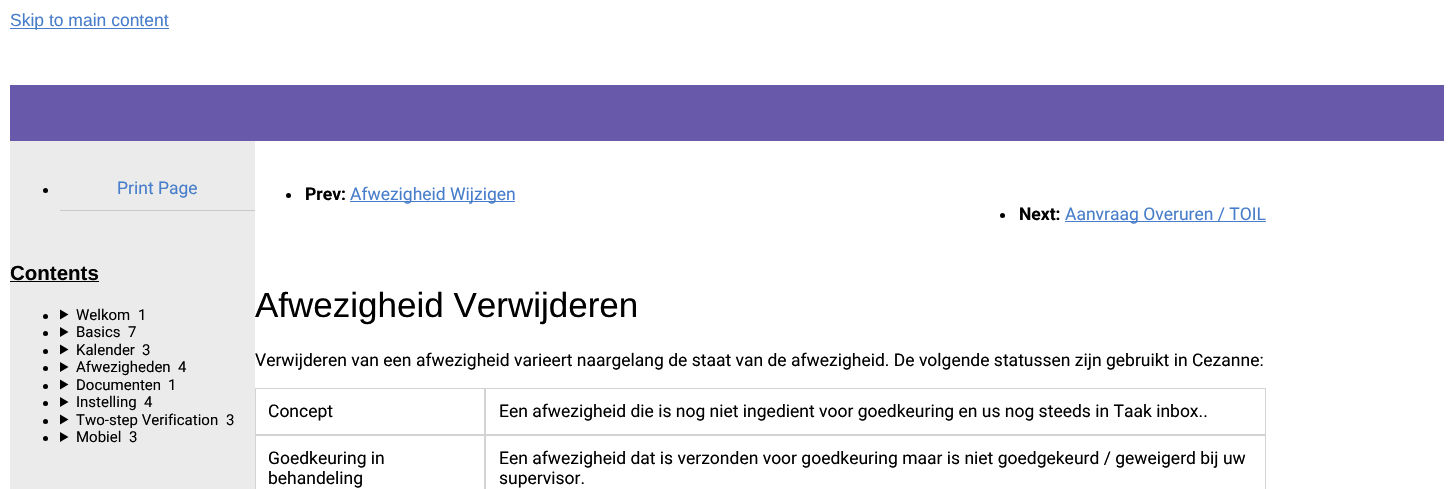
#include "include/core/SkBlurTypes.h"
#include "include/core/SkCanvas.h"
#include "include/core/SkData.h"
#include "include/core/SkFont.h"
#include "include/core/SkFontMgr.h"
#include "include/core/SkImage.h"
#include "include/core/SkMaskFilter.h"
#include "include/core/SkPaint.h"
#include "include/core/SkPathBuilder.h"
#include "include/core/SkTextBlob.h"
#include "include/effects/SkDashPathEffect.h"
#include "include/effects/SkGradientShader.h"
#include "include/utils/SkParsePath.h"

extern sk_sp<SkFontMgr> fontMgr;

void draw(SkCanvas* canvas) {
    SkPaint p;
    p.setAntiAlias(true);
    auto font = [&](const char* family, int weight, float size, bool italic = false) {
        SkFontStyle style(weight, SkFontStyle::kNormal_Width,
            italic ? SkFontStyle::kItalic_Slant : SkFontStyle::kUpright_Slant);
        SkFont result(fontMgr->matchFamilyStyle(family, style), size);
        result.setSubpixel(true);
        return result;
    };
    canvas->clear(0xFFFFFFFF);
    p.setColor(0xFF6959AB);
    canvas->drawRect(SkRect::MakeLTRB(10, 85, 1444, 141), p);
    p.setColor(0xFF477DCA);
    canvas->drawRect(SkRect::MakeLTRB(10, 28, 169, 29), p);
    auto font1 = font("Liberation Sans", 400, 17.5f);
    canvas->drawString("Skip to main content", 10, 26, font1, p);
    auto font2 = font("Liberation Sans", 400, 35);
    p.setColor(0xFF000000);
    canvas->drawString("Afwezigheid Verwijderen", 255, 317, font2, p);
    auto font3 = font("Roboto", 400, 17.5f);
    canvas->drawString("Verwijderen van een afwezigheid varieert naargelang de staat van de afwezigheid. De volgende statussen zijn gebruikt in Cezanne:", 255, 366, font3, p);
    p.setColor(0xFFEAEBEA);
    canvas->drawRect(SkRect::MakeLTRB(10, 141, 255, 489), p);
    p.setColor(0xFF000000);
    canvas->drawCircle(45.5f, 190.5f, 2.5f, p);
    p.setColor(0xFFCACACA);
    canvas->drawRect(SkRect::MakeLTRB(60, 210, 255, 211), p);
    p.setColor(0xFF477DCA);
    canvas->drawString("Print Page", 117, 194, font3, p);
    auto font4 = font("Liberation Sans", 700, 20.5f);
    p.setColor(0xFF000000);
    canvas->drawString("Contents", 10, 280, font4, p);
    canvas->drawRect(SkRect::MakeLTRB(10, 281, 99, 282), p);
    canvas->drawCircle(45.5f, 316.5f, 2.5f, p);
    canvas->drawPath(SkPathBuilder().moveTo(60, 309.5f).lineTo(68.5f, 314.5f).lineTo(60, 319.5f).close().detach(), p);
    auto font5 = font("Roboto", 400, 15);
    canvas->drawString("Welkom", 76, 320, font5, p);
    canvas->drawString("1", 138, 320, font5, p);
    canvas->drawCircle(45.5f, 333.5f, 2.5f, p);
    canvas->drawPath(SkPathBuilder().moveTo(60, 327).lineTo(68.5f, 332).lineTo(60, 337).close().detach(), p);
    canvas->drawString("Basics", 76, 337, font5, p);
    canvas->drawString("7", 128, 337, font5, p);
    canvas->drawCircle(45.5f, 351.5f, 2.5f, p);
    canvas->drawPath(SkPathBuilder().moveTo(60, 344.5f).lineTo(68.5f, 349.5f).lineTo(60, 354.5f).close().detach(), p);
    canvas->drawString("Kalender", 76, 355, font5, p);
    canvas->drawString("3", 142, 355, font5, p);
    canvas->drawCircle(45.5f, 368.5f, 2.5f, p);
    canvas->drawPath(SkPathBuilder().moveTo(60, 362).lineTo(68.5f, 367).lineTo(60, 372).close().detach(), p);
    canvas->drawString("Afwezigheden", 76, 372, font5, p);
    canvas->drawString("4", 178, 372, font5, p);
    canvas->drawCircle(45.5f, 386.5f, 2.5f, p);
    canvas->drawPath(SkPathBuilder().moveTo(60, 379.5f).lineTo(68.5f, 384.5f).lineTo(60, 389.5f).close().detach(), p);
    canvas->drawString("Documenten", 76, 390, font5, p);
    canvas->drawString("1", 168, 390, font5, p);
    canvas->drawCircle(45.5f, 403.5f, 2.5f, p);
    canvas->drawPath(SkPathBuilder().moveTo(60, 397).lineTo(68.5f, 402).lineTo(60, 407).close().detach(), p);
    canvas->drawString("Instelling", 76, 407, font5, p);
    canvas->drawString("4", 144, 407, font5, p);
    canvas->drawCircle(45.5f, 421.5f, 2.5f, p);
    canvas->drawPath(SkPathBuilder().moveTo(60, 414.5f).lineTo(68.5f, 419.5f).lineTo(60, 424.5f).close().detach(), p);
    canvas->drawString("Two-step Verification", 76, 425, font5, p);
    canvas->drawString("3", 226, 425, font5, p);
    canvas->drawCircle(45.5f, 438.5f, 2.5f, p);
    canvas->drawPath(SkPathBuilder().moveTo(60, 432).lineTo(68.5f, 437).lineTo(60, 442).close().detach(), p);
    canvas->drawString("Mobiel", 76, 442, font5, p);
    canvas->drawString("3", 129, 442, font5, p);
    canvas->drawCircle(288.5f, 195.5f, 2.5f, p);
    auto font6 = font("Roboto", 700, 17.5f);
    canvas->drawString("Prev:", 305, 200, font6, p);
    p.setColor(0xFF477DCA);
    canvas->drawRect(SkRect::MakeLTRB(350, 201, 515, 202), p);
    canvas->drawString("Afwezigheid Wijzigen", 350, 200, font3, p);
    p.setColor(0xFF000000);
    canvas->drawCircle(1002.5f, 215.5f, 2.5f, p);
    canvas->drawString("Next:", 1019, 220, font6, p);
    p.setColor(0xFF477DCA);
    canvas->drawRect(SkRect::MakeLTRB(1065, 221, 1266, 222), p);
    canvas->drawString("Aanvraag Overuren / TOIL", 1065, 220, font3, p);
    p.setStyle(SkPaint::kStroke_Style);
    p.setStrokeWidth(1);
    p.setColor(0xFFD3D3D3);
    canvas->drawRect(SkRect::MakeLTRB(255.5f, 388.5f, 484.5f, 434.5f), p);
    p.setStyle(SkPaint::kFill_Style);
    p.setColor(0xFF000000);
    canvas->drawString("Concept", 268, 417, font3, p);
    p.setStyle(SkPaint::kStroke_Style);
    p.setColor(0xFFD3D3D3);
    canvas->drawRect(SkRect::MakeLTRB(485.5f, 388.5f, 1265.5f, 434.5f), p);
    p.setStyle(SkPaint::kFill_Style);
    p.setColor(0xFF000000);
    canvas->drawString("Een afwezigheid die is nog niet ingedient voor goedkeuring en us nog steeds in Taak inbox..", 499, 417, font3, p);
    p.setStyle(SkPaint::kStroke_Style);
    p.setColor(0xFFD3D3D3);
    canvas->drawRect(SkRect::MakeLTRB(255.5f, 435.5f, 484.5f, 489.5f), p);
    p.setStyle(SkPaint::kFill_Style);
    p.setColor(0xFF000000);
    canvas->drawString("Goedkeuring in", 268, 464, font3, p);
    canvas->drawString("behandeling", 268, 484, font3, p);
    p.setStyle(SkPaint::kStroke_Style);
    p.setColor(0xFFD3D3D3);
    canvas->drawRect(SkRect::MakeLTRB(485.5f, 435.5f, 1265.5f, 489.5f), p);
    p.setStyle(SkPaint::kFill_Style);
    p.setColor(0xFF000000);
    canvas->drawString("Een afwezigheid dat is verzonden voor goedkeuring maar is niet goedgekeurd / geweigerd bij uw", 499, 464, font3, p);
    canvas->drawString("supervisor.", 499, 484, font3, p);
}
